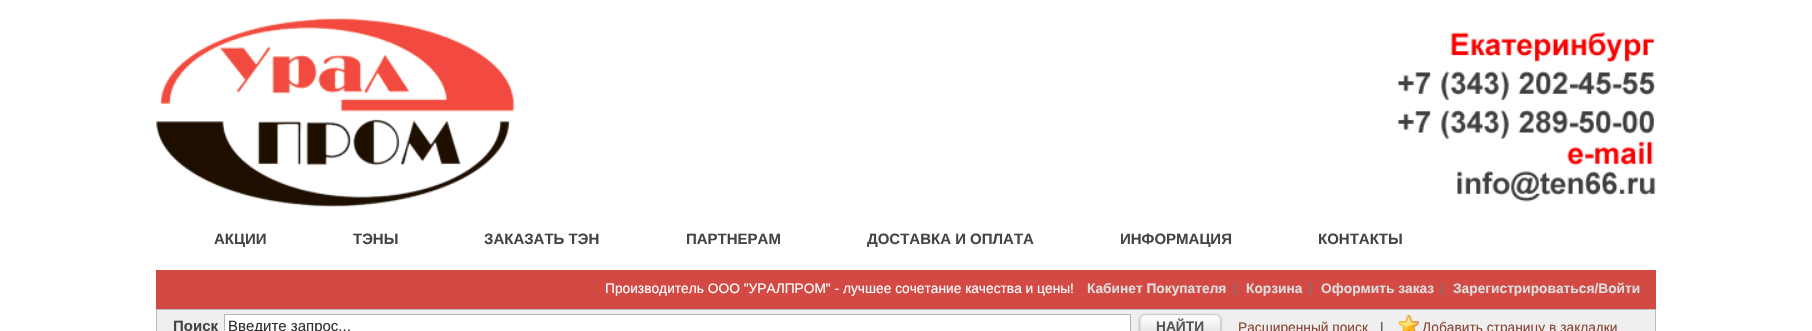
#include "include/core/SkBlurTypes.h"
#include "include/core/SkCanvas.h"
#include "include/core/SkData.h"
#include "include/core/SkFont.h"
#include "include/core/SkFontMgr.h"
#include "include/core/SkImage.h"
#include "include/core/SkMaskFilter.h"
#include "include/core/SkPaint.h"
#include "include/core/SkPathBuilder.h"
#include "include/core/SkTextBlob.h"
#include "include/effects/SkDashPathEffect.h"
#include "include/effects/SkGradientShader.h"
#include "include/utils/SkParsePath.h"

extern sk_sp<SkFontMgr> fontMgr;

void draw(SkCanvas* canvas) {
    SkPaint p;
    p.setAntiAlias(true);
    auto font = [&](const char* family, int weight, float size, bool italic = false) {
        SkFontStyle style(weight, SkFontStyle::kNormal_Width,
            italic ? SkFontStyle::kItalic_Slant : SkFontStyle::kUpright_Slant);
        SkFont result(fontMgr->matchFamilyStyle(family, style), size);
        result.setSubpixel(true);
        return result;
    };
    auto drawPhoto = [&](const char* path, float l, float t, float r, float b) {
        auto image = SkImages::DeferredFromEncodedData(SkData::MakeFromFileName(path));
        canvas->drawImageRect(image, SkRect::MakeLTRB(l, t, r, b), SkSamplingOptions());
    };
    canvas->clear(0xFFFFFFFF);
    drawPhoto("media/1.png", 156, 18, 514, 207);
    drawPhoto("media/2.png", 1397, 32, 1656, 202);
    auto font1 = font("Liberation Sans", 700, 15);
    p.setColor(0xFF444444);
    {
        const struct { const char* s; float x, y; } items[] = {
            {"АКЦИИ", 214, 244},
            {"ТЭНЫ", 353, 244},
            {"ЗАКАЗАТЬ ТЭН", 484, 244},
            {"ПАРТНЕРАМ", 686, 244},
            {"ДОСТАВКА И ОПЛАТА", 867, 244},
            {"ИНФОРМАЦИЯ", 1120, 244},
            {"КОНТАКТЫ", 1318, 244},
        };
        for (auto [s, x, y] : items) {
            canvas->drawString(s, x, y, font1, p);
        }
    }
    p.setColor(0xFFD24A43);
    canvas->drawRect(SkRect::MakeLTRB(156, 270, 1656, 309), p);
    auto font2 = font("Liberation Sans", 400, 13.75f);
    p.setColor(0xFFFFFFFF);
    canvas->drawString("Производитель ООО \"УРАЛПРОМ\" - лучшее сочетание качества и цены!", 605, 293, font2, p);
    auto font3 = font("Liberation Sans", 700, 13.75f);
    p.setColor(0xFFDDDDDD);
    canvas->drawString("Кабинет Покупателя", 1087, 293, font3, p);
    drawPhoto("media/3.png", 1233, 282, 1235, 295);
    canvas->drawString("Корзина", 1246, 293, font3, p);
    drawPhoto("media/4.png", 1310, 282, 1312, 295);
    canvas->drawString("Оформить заказ", 1321, 293, font3, p);
    drawPhoto("media/5.png", 1441, 282, 1443, 295);
    canvas->drawString("Зарегистрироваться/Войти", 1453, 293, font3, p);
    {
        const struct { float l, t, r, b; SkColor color; } items[] = {
            {157, 310, 1655, 331, 0xFFEFEFEF},
            {156, 309, 1656, 310, 0xFFBBBBBB},
            {1655, 309, 1656, 331, 0xFFBBBBBB},
            {156, 309, 157, 331, 0xFFBBBBBB},
        };
        for (auto [l, t, r, b, color] : items) {
            p.setColor(color);
            canvas->drawRect(SkRect::MakeLTRB(l, t, r, b), p);
        }
    }
    p.setColor(0xFF444444);
    canvas->drawString("Поиск", 173, 331, font1, p);
    p.setColor(0xFFFFFFFF);
    canvas->drawRect(SkRect::MakeLTRB(224.5f, 314.5f, 1130.5f, 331.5f), p);
    p.setStyle(SkPaint::kStroke_Style);
    p.setStrokeWidth(1);
    p.setColor(0xFFB6B6B6);
    canvas->drawRect(SkRect::MakeLTRB(224.5f, 314.5f, 1130.5f, 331.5f), p);
    auto font4 = font("Liberation Sans", 400, 15);
    p.setStyle(SkPaint::kFill_Style);
    p.setColor(0xFF2F2F2F);
    canvas->drawString("Введите запрос...", 228, 331, font4, p);
    drawPhoto("media/6.png", 1137, 313, 1145, 331);
    drawPhoto("media/7.png", 1145, 313, 1223, 331);
    p.setColor(0xFF555555);
    canvas->drawString("НАЙТИ", 1156, 331, font3, p);
    p.setColor(0xFF884535);
    canvas->drawString("Расширенный поиск", 1238, 332, font2, p);
    p.setColor(0xFF444444);
    canvas->drawString("|", 1380, 332, font2, p);
    drawPhoto("media/8.png", 1398, 315, 1419, 331);
    p.setColor(0xFF884535);
    canvas->drawString("Добавить страницу в закладки", 1422, 332, font2, p);
}
